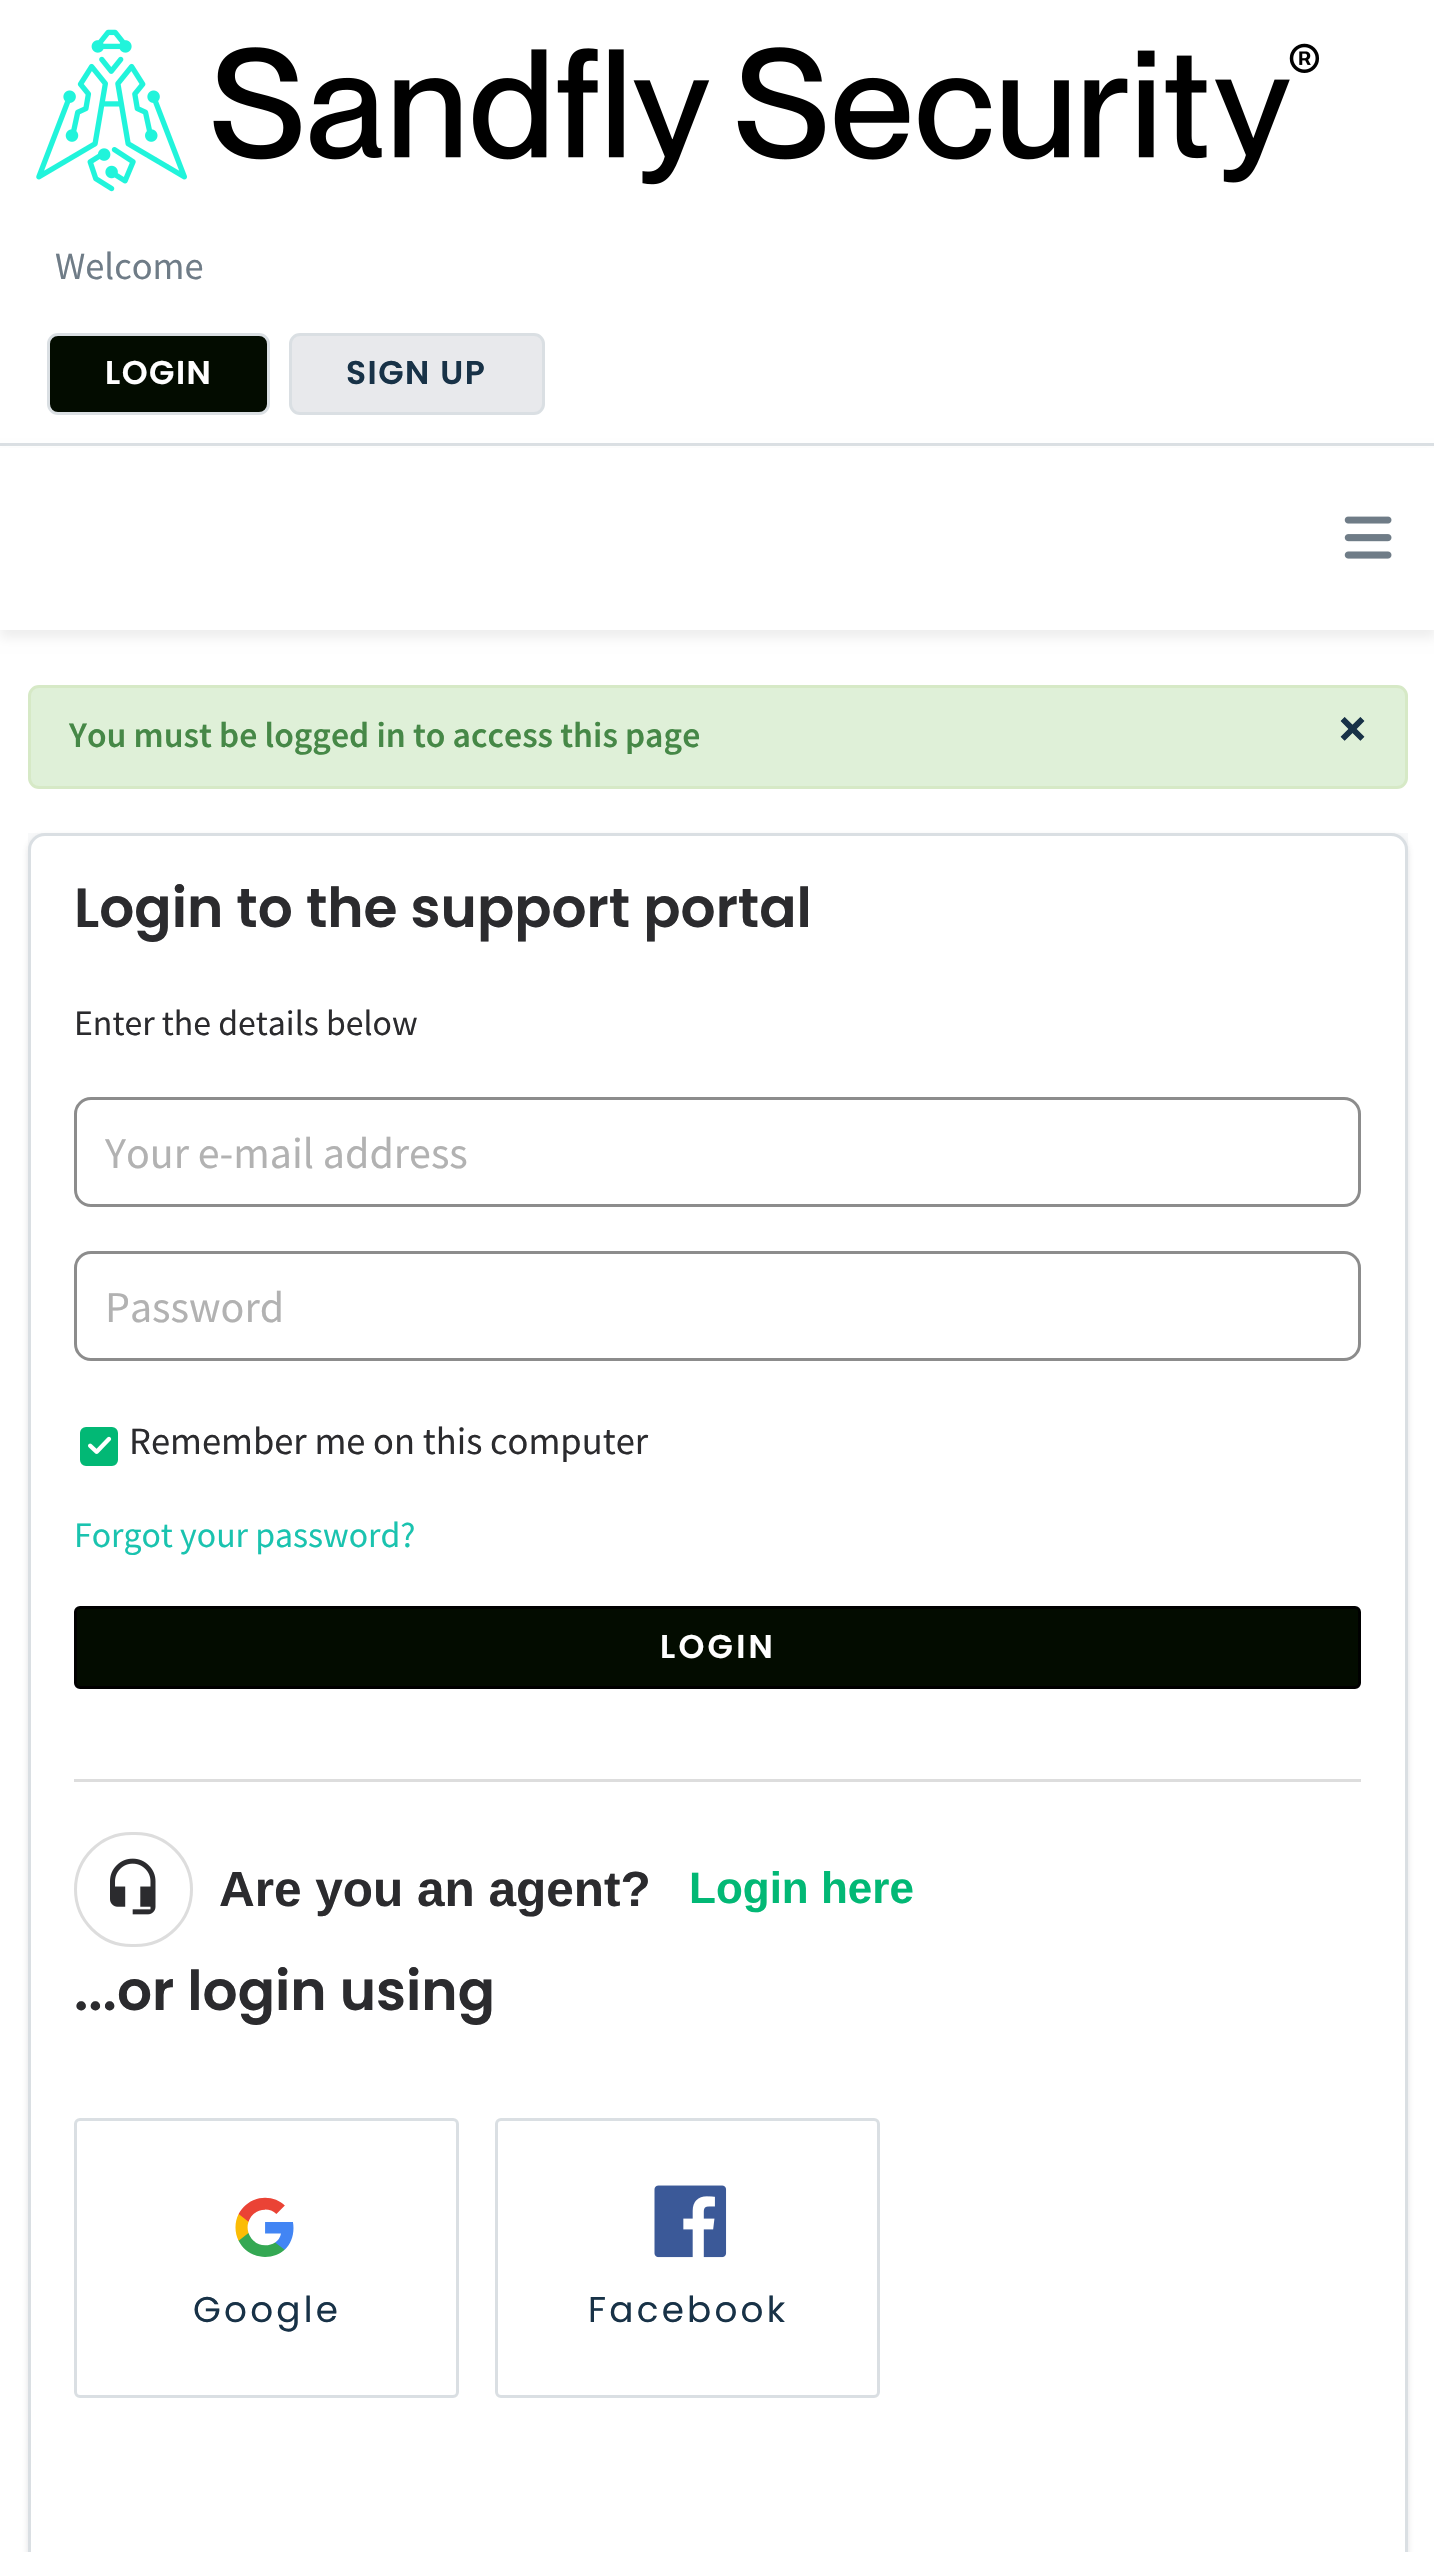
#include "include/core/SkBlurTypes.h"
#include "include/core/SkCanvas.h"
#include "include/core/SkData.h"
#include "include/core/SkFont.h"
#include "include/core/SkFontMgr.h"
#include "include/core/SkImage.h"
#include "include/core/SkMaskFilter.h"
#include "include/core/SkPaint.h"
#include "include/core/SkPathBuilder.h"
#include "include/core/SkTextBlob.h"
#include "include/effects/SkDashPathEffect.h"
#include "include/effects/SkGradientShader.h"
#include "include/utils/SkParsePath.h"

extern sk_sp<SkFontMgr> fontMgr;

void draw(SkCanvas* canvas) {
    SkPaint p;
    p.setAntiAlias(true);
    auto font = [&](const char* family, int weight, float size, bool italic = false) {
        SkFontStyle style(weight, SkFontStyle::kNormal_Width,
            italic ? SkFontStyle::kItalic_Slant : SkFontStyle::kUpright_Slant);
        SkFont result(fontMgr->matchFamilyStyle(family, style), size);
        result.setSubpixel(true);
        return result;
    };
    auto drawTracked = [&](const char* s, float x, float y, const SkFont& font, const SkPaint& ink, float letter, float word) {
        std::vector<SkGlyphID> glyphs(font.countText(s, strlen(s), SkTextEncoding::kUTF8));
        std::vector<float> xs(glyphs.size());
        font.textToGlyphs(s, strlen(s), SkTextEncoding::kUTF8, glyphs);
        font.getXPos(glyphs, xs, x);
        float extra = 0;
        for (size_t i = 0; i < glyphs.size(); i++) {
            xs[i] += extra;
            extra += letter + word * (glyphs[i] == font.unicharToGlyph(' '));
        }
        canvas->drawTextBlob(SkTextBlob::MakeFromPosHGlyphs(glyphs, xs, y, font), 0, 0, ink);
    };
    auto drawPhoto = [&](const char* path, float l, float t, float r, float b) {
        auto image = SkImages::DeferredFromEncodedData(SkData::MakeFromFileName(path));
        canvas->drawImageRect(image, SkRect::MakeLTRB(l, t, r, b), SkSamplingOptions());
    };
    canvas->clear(0xFFFFFFFF);
    p.setColor(0xFFDADFE3);
    canvas->drawRect(SkRect::MakeLTRB(0, 443, 1434, 446), p);
    drawPhoto("media/1.png", 36, 29, 1320, 192);
    auto font1 = font("Source Sans Pro", 400, 38.5f);
    p.setColor(0xFF6F7C87);
    canvas->drawString("Welcome", 55, 279, font1, p);
    p.setColor(0xFF030C00);
    canvas->drawRoundRect(SkRect::MakeLTRB(48.5f, 334.5f, 268.5f, 413.5f), 9.5f, 9.5f, p);
    p.setStyle(SkPaint::kStroke_Style);
    p.setStrokeWidth(3);
    p.setColor(0xFFDADFE3);
    canvas->drawRoundRect(SkRect::MakeLTRB(48.5f, 334.5f, 268.5f, 413.5f), 9.5f, 9.5f, p);
    auto font2 = font("Poppins", 600, 33);
    p.setStyle(SkPaint::kFill_Style);
    p.setColor(0xFFFFFFFF);
    drawTracked("LOGIN", 105, 384, font2, p, 1.5f, 0);
    p.setColor(0xFFE8E9EC);
    canvas->drawRoundRect(SkRect::MakeLTRB(290.5f, 334.5f, 543.5f, 413.5f), 9.5f, 9.5f, p);
    p.setStyle(SkPaint::kStroke_Style);
    p.setColor(0xFFDADFE3);
    canvas->drawRoundRect(SkRect::MakeLTRB(290.5f, 334.5f, 543.5f, 413.5f), 9.5f, 9.5f, p);
    p.setStyle(SkPaint::kFill_Style);
    p.setColor(0xFF183247);
    drawTracked("SIGN UP", 346, 384, font2, p, 1.5f, 0);
    p.setColor(0xFFEEEEEE);
    p.setMaskFilter(SkMaskFilter::MakeBlur(kNormal_SkBlurStyle, 5.5f));
    canvas->drawRect(SkRect::MakeLTRB(0, 454, 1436, 638), p);
    p.setMaskFilter(nullptr);
    p.setColor(0xFFFFFFFF);
    canvas->drawRect(SkRect::MakeLTRB(0, 448, 1434, 630), p);
    drawPhoto("media/2.png", 1344, 516, 1392, 559);
    p.setColor(0xFFDFF0D8);
    canvas->drawRoundRect(SkRect::MakeLTRB(29.5f, 686.5f, 1406.5f, 787.5f), 9.5f, 9.5f, p);
    p.setStyle(SkPaint::kStroke_Style);
    p.setColor(0xFFD6E9C6);
    canvas->drawRoundRect(SkRect::MakeLTRB(29.5f, 686.5f, 1406.5f, 787.5f), 9.5f, 9.5f, p);
    auto font3 = font("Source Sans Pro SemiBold", 600, 35.75f);
    p.setStyle(SkPaint::kFill_Style);
    p.setColor(0xFF468847);
    canvas->drawString("You must be logged in to access this page", 69, 747, font3, p);
    auto font4 = font("Source Sans Pro", 700, 55);
    p.setColor(0xFF183247);
    canvas->drawString("×", 1338, 747, font4, p);
    p.setColor(0xFFF8F9FA);
    canvas->drawRect(SkRect::MakeLTRB(28, 833, 1408, 850), p);
    p.setColor(0x263F3F44);
    p.setMaskFilter(SkMaskFilter::MakeBlur(kNormal_SkBlurStyle, 3));
    canvas->drawRoundRect(SkRect::MakeLTRB(28, 836, 1408, 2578), 17, 17, p);
    p.setMaskFilter(nullptr);
    p.setColor(0xFFFFFFFF);
    canvas->drawRoundRect(SkRect::MakeLTRB(29.5f, 834.5f, 1406.5f, 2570.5f), 15.5f, 15.5f, p);
    p.setStyle(SkPaint::kStroke_Style);
    p.setColor(0xFFDADFE3);
    canvas->drawRoundRect(SkRect::MakeLTRB(29.5f, 834.5f, 1406.5f, 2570.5f), 15.5f, 15.5f, p);
    auto font5 = font("Poppins", 600, 55);
    p.setStyle(SkPaint::kFill_Style);
    p.setColor(0xFF2B2B2E);
    canvas->drawString("Login to the support portal", 74, 927, font5, p);
    auto font6 = font("Source Sans Pro", 400, 35.75f);
    canvas->drawString("Enter the details below", 74, 1035, font6, p);
    p.setStyle(SkPaint::kStroke_Style);
    p.setColor(0xFF8C8C8C);
    canvas->drawRoundRect(SkRect::MakeLTRB(75.5f, 1098.5f, 1359.5f, 1205.5f), 15.5f, 15.5f, p);
    auto font7 = font("Source Sans Pro", 400, 44);
    p.setStyle(SkPaint::kFill_Style);
    p.setColor(0xFFB2B2B2);
    canvas->drawString("Your e-mail address", 105, 1168, font7, p);
    p.setStyle(SkPaint::kStroke_Style);
    p.setColor(0xFF8C8C8C);
    canvas->drawRoundRect(SkRect::MakeLTRB(75.5f, 1252.5f, 1359.5f, 1359.5f), 15.5f, 15.5f, p);
    p.setStyle(SkPaint::kFill_Style);
    p.setColor(0xFFB2B2B2);
    canvas->drawString("Password", 105, 1322, font7, p);
    p.setColor(0xFF02B875);
    canvas->drawRoundRect(SkRect::MakeLTRB(81.5f, 1428.5f, 116.5f, 1464.5f), 4.5f, 4.5f, p);
    p.setStyle(SkPaint::kStroke_Style);
    canvas->drawRoundRect(SkRect::MakeLTRB(81.5f, 1428.5f, 116.5f, 1464.5f), 4.5f, 4.5f, p);
    drawPhoto("media/3.png", 88, 1436, 112, 1454);
    p.setStyle(SkPaint::kFill_Style);
    p.setColor(0xFF2B2B2E);
    canvas->drawString("Remember me on this computer", 129, 1454, font1, p);
    p.setColor(0xFF1AC3AF);
    canvas->drawString("Forgot your password?", 74, 1547, font6, p);
    p.setColor(0xFF030C00);
    canvas->drawRoundRect(SkRect::MakeLTRB(75.5f, 1607.5f, 1359.5f, 1687.5f), 4.5f, 4.5f, p);
    p.setStyle(SkPaint::kStroke_Style);
    p.setColor(0xFF000000);
    canvas->drawRoundRect(SkRect::MakeLTRB(75.5f, 1607.5f, 1359.5f, 1687.5f), 4.5f, 4.5f, p);
    p.setStyle(SkPaint::kFill_Style);
    p.setColor(0xFFFFFFFF);
    drawTracked("LOGIN", 660, 1658, font2, p, 3.25f, 0);
    p.setColor(0xFFDDDDDD);
    canvas->drawRect(SkRect::MakeLTRB(74, 1779, 1361, 1782), p);
    p.setStyle(SkPaint::kStroke_Style);
    canvas->drawRoundRect(SkRect::MakeLTRB(75.5f, 1833.5f, 191.5f, 1945.5f), 56, 56, p);
    drawPhoto("media/4.png", 110, 1858, 156, 1915);
    auto font8 = font("Liberation Sans", 700, 49.5f);
    p.setStyle(SkPaint::kFill_Style);
    p.setColor(0xFF2B2B2E);
    canvas->drawString("Are you an agent?", 219, 1906, font8, p);
    auto font9 = font("Liberation Sans", 700, 44);
    p.setColor(0xFF02B875);
    canvas->drawString("Login here", 689, 1903, font9, p);
    p.setColor(0xFF2B2B2E);
    canvas->drawString("...or login using", 74, 2010, font5, p);
    p.setStyle(SkPaint::kStroke_Style);
    p.setColor(0xFFDADFE3);
    canvas->drawRoundRect(SkRect::MakeLTRB(75.5f, 2119.5f, 457.5f, 2396.5f), 4.5f, 4.5f, p);
    drawPhoto("media/5.png", 235, 2197, 294, 2257);
    auto font10 = font("Poppins", 400, 35.75f);
    p.setStyle(SkPaint::kFill_Style);
    p.setColor(0xFF183247);
    drawTracked("Google", 193, 2322, font10, p, 3.25f, 0);
    p.setStyle(SkPaint::kStroke_Style);
    p.setColor(0xFFDADFE3);
    canvas->drawRoundRect(SkRect::MakeLTRB(496.5f, 2119.5f, 878.5f, 2396.5f), 4.5f, 4.5f, p);
    drawPhoto("media/6.png", 654, 2185, 727, 2258);
    p.setStyle(SkPaint::kFill_Style);
    p.setColor(0xFF183247);
    drawTracked("Facebook", 588, 2322, font10, p, 3.25f, 0);
}
